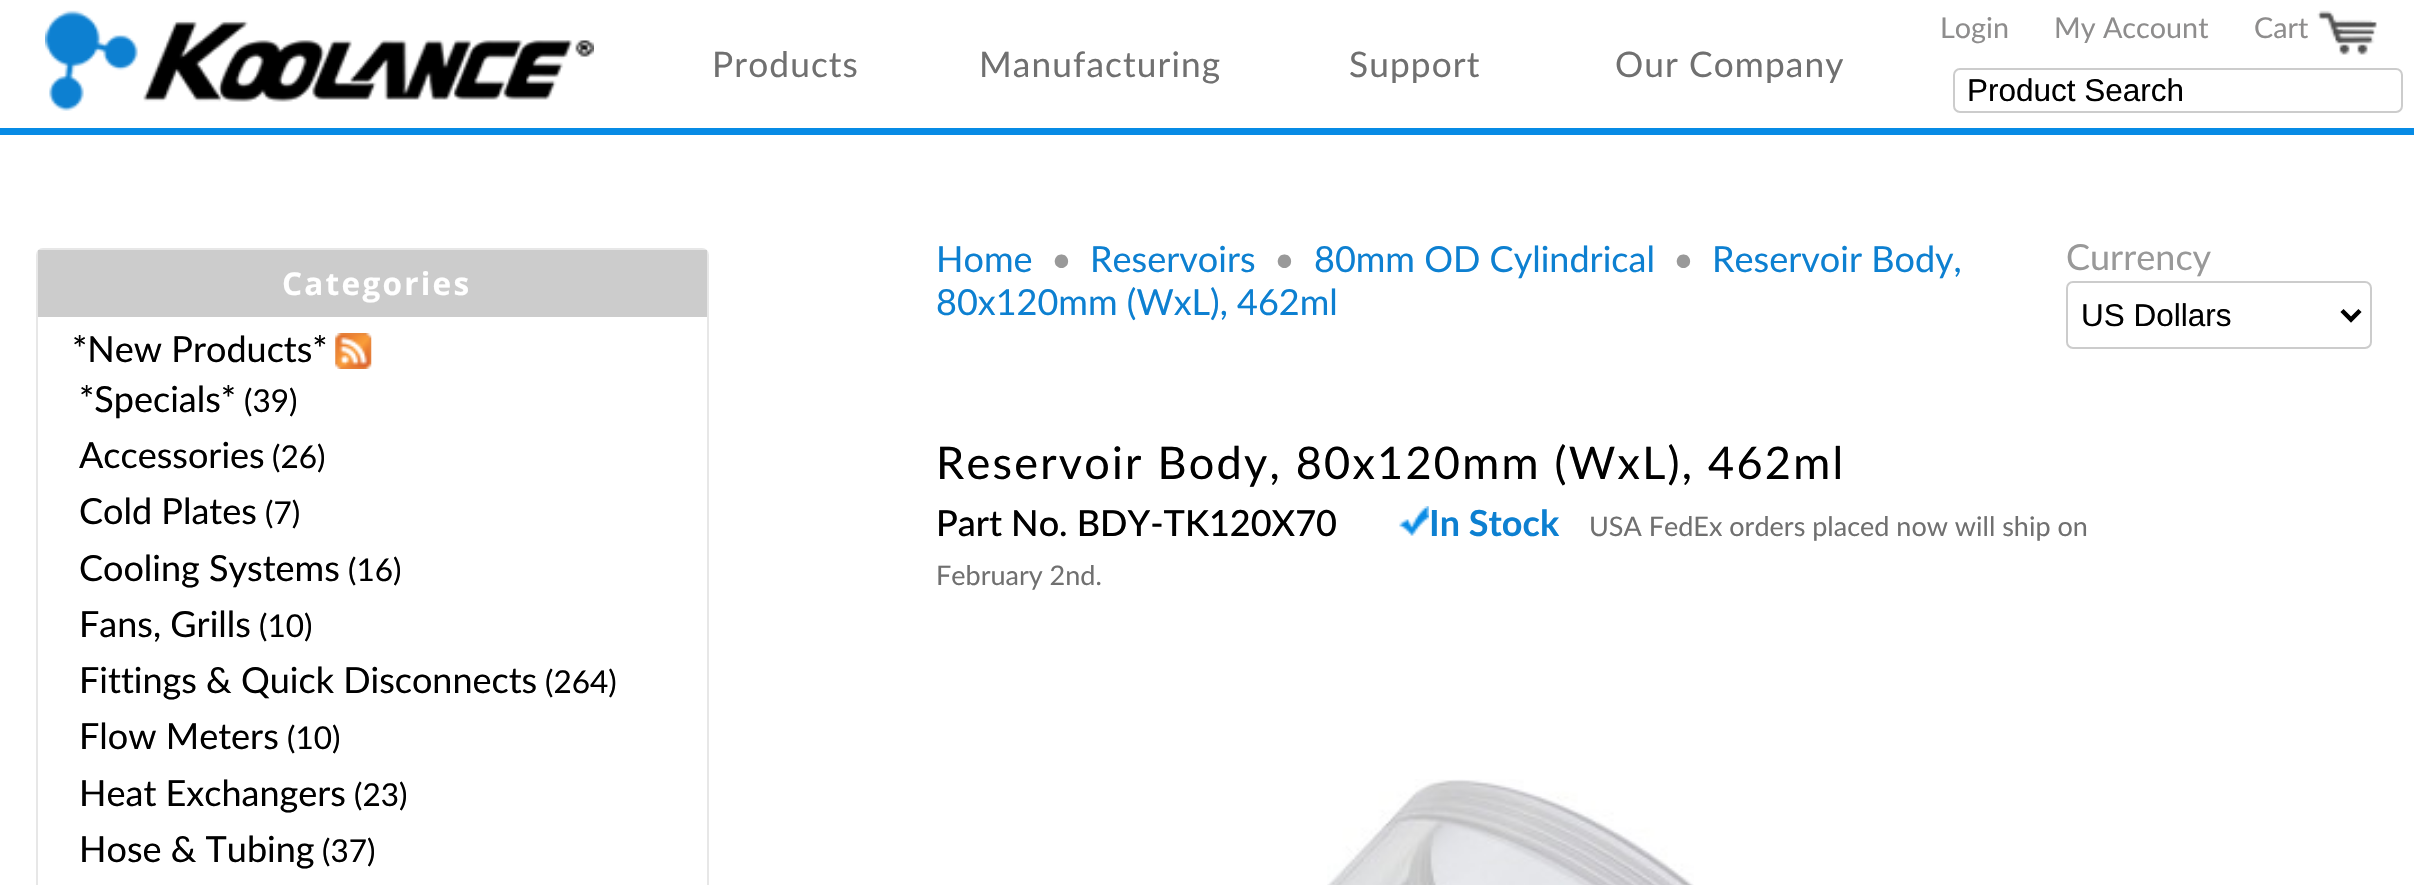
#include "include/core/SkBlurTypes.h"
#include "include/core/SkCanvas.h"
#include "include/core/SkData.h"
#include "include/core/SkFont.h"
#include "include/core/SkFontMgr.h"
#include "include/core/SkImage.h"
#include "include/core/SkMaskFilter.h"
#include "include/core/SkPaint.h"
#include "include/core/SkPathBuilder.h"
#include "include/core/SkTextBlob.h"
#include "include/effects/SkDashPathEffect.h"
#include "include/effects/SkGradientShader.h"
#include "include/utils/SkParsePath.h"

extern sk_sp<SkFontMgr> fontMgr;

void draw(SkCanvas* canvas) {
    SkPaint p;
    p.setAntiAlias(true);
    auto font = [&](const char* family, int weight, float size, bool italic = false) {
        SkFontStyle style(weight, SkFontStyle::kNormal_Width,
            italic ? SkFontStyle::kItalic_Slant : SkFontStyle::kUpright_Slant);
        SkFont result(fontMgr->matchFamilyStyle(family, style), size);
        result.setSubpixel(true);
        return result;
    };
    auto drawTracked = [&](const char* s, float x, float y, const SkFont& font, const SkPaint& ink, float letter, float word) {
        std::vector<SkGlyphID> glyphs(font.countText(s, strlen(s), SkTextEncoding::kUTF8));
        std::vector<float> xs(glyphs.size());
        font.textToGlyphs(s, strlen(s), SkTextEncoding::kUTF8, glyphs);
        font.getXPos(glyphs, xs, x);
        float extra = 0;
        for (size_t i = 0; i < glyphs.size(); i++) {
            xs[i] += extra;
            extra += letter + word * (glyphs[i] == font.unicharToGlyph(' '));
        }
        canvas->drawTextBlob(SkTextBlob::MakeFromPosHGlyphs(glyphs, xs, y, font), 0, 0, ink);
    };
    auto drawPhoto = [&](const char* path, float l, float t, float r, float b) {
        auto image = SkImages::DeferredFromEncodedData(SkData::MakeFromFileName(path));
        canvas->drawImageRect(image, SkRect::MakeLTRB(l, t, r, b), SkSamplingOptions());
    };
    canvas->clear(0xFFFFFFFF);
    drawPhoto("media/1.png", 45, 10, 594, 111);
    auto font1 = font("Lato", 400, 28.75f);
    p.setColor(0xFF8E8D8D);
    {
        const struct { const char* s; float x, y; } items[] = {
            {"Login", 1940, 38},
            {"My Account", 2054, 38},
            {"Cart", 2254, 38},
        };
        for (auto [s, x, y] : items) {
            canvas->drawString(s, x, y, font1, p);
        }
    }
    drawPhoto("media/2.png", 2317, 10, 2378, 55);
    auto font2 = font("Lato", 400, 35.25f);
    p.setColor(0xFF707070);
    {
        const struct { const char* s; float x, y; } items[] = {
            {"Products", 712, 77},
            {"Manufacturing", 979, 77},
            {"Support", 1349, 77},
            {"Our Company", 1615, 77},
        };
        for (auto [s, x, y] : items) {
            drawTracked(s, x, y, font2, p, 1.1f, 0);
        }
    }
    p.setStyle(SkPaint::kStroke_Style);
    p.setStrokeWidth(2);
    p.setColor(0xFFCCCCCC);
    canvas->drawRoundRect(SkRect::MakeLTRB(1954, 69, 2402, 112), 6, 6, p);
    auto font3 = font("Liberation Sans", 400, 31.5f);
    p.setStyle(SkPaint::kFill_Style);
    p.setColor(0xFF000000);
    canvas->drawString("Product Search", 1967, 101, font3, p);
    p.setColor(0xFF078BE5);
    canvas->drawRect(SkRect::MakeLTRB(0, 128, 2414, 135), p);
    p.setStyle(SkPaint::kStroke_Style);
    p.setColor(0xFFE7E7E7);
    canvas->drawRoundRect(SkRect::MakeLTRB(37, 249, 708, 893), 6, 6, p);
    p.setStyle(SkPaint::kFill_Style);
    p.setColor(0xFFCCCCCC);
    canvas->drawRect(SkRect::MakeLTRB(38, 250, 707, 317), p);
    auto font4 = font("Open Sans", 700, 31.5f);
    p.setColor(0xFFFFFFFF);
    drawTracked("Categories", 282, 295, font4, p, 2.25f, 0);
    auto font5 = font("Lato", 400, 36);
    p.setColor(0xFF000000);
    canvas->drawString("*New Products*", 72, 362, font5, p);
    drawPhoto("media/3.png", 335, 333, 372, 369);
    canvas->drawString("*Specials*", 79, 412, font5, p);
    auto font6 = font("Lato", 400, 31.5f);
    canvas->drawString("(39)", 244, 412, font6, p);
    canvas->drawString("Accessories", 79, 468, font5, p);
    canvas->drawString("(26)", 272, 468, font6, p);
    canvas->drawString("Cold Plates", 79, 524, font5, p);
    canvas->drawString("(7)", 265, 524, font6, p);
    canvas->drawString("Cooling Systems", 79, 581, font5, p);
    canvas->drawString("(16)", 348, 581, font6, p);
    canvas->drawString("Fans, Grills", 79, 637, font5, p);
    canvas->drawString("(10)", 259, 637, font6, p);
    canvas->drawString("Fittings & Quick Disconnects", 79, 693, font5, p);
    canvas->drawString("(264)", 545, 693, font6, p);
    canvas->drawString("Flow Meters", 79, 749, font5, p);
    canvas->drawString("(10)", 287, 749, font6, p);
    canvas->drawString("Heat Exchangers", 79, 806, font5, p);
    canvas->drawString("(23)", 354, 806, font6, p);
    canvas->drawString("Hose & Tubing", 79, 862, font5, p);
    canvas->drawString("(37)", 322, 862, font6, p);
    p.setColor(0xFF0D80D1);
    canvas->drawString("Home", 936, 272, font5, p);
    p.setColor(0xFF999999);
    canvas->drawString("•", 1051, 272, font5, p);
    p.setColor(0xFF0D80D1);
    canvas->drawString("Reservoirs", 1090, 272, font5, p);
    p.setColor(0xFF999999);
    canvas->drawString("•", 1274, 272, font5, p);
    p.setColor(0xFF0D80D1);
    canvas->drawString("80mm OD Cylindrical", 1314, 272, font5, p);
    p.setColor(0xFF999999);
    canvas->drawString("•", 1673, 272, font5, p);
    p.setColor(0xFF0D80D1);
    canvas->drawString("Reservoir Body,", 1712, 272, font5, p);
    canvas->drawString("80x120mm (WxL), 462ml", 936, 315, font5, p);
    auto font7 = font("Lato", 400, 45);
    p.setColor(0xFF000000);
    drawTracked("Reservoir Body, 80x120mm (WxL), 462ml", 936, 479, font7, p, 2.25f, 0);
    auto font8 = font("Lato", 500, 36);
    canvas->drawString("Part No. BDY-TK120X70", 936, 536, font8, p);
    drawPhoto("media/4.png", 1399, 506, 1429, 536);
    auto font9 = font("Lato", 700, 36);
    p.setColor(0xFF0D80D1);
    canvas->drawString("In Stock", 1429, 536, font9, p);
    auto font10 = font("Lato", 400, 27);
    p.setColor(0xFF707070);
    canvas->drawString("USA FedEx orders placed now will ship on", 1589, 536, font10, p);
    canvas->drawString("February 2nd.", 936, 585, font10, p);
    drawPhoto("media/5.png", 1327, 779, 1694, 885);
    p.setColor(0xFF999999);
    canvas->drawString("Currency", 2066, 270, font5, p);
    p.setStyle(SkPaint::kStroke_Style);
    p.setColor(0xFFCCCCCC);
    canvas->drawRoundRect(SkRect::MakeLTRB(2067, 282, 2371, 348), 6, 6, p);
    p.setStrokeWidth(4.5f);
    p.setColor(0xFF000000);
    canvas->drawPath(SkPathBuilder().moveTo(2342, 310.5f).lineTo(2351, 319.5f).lineTo(2360, 310.5f).detach(), p);
    p.setStyle(SkPaint::kFill_Style);
    canvas->drawString("US Dollars", 2081, 326, font3, p);
}
